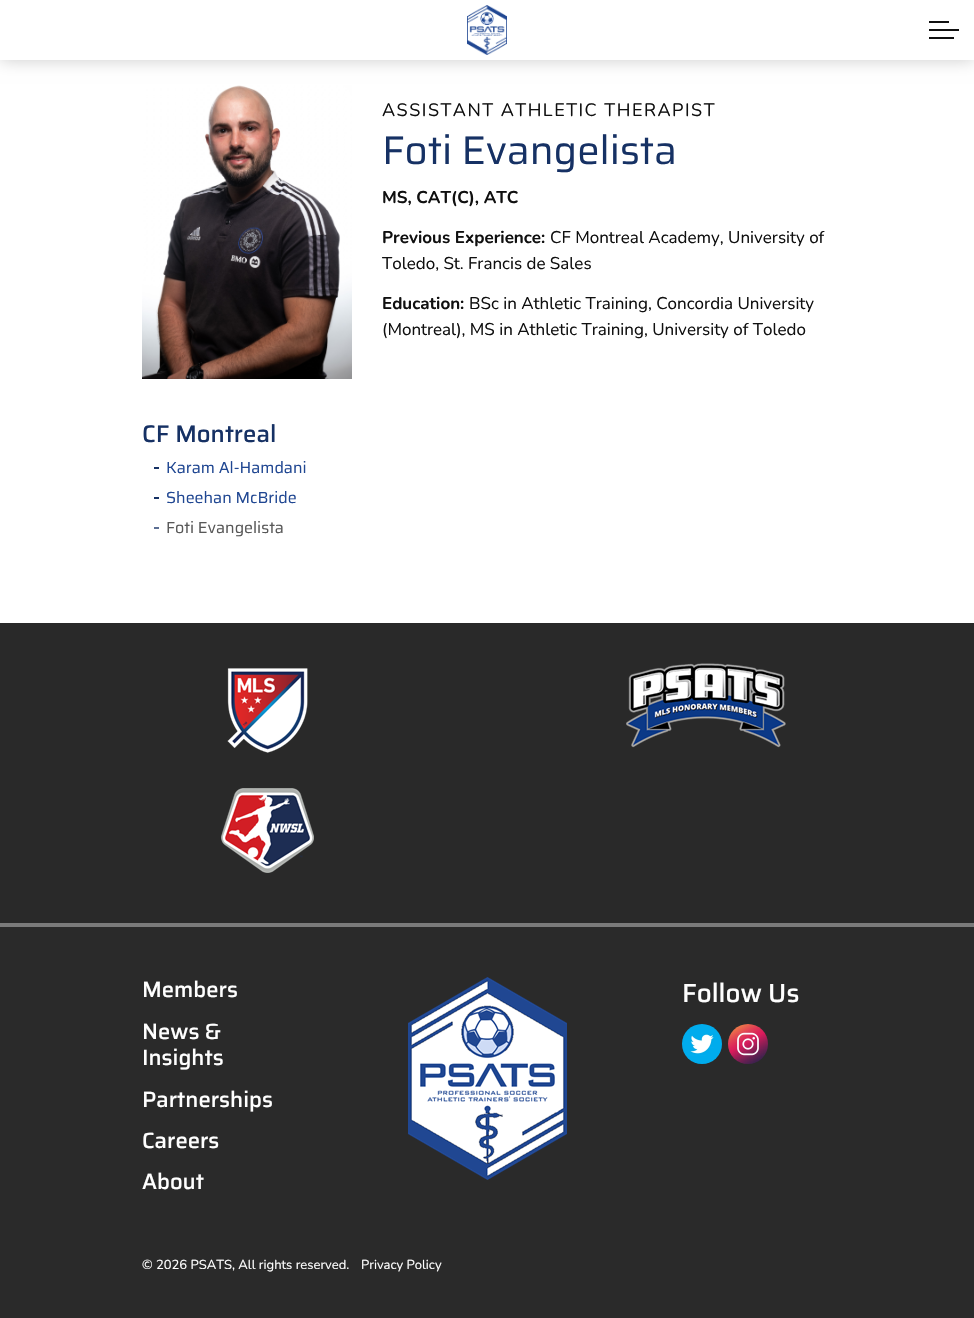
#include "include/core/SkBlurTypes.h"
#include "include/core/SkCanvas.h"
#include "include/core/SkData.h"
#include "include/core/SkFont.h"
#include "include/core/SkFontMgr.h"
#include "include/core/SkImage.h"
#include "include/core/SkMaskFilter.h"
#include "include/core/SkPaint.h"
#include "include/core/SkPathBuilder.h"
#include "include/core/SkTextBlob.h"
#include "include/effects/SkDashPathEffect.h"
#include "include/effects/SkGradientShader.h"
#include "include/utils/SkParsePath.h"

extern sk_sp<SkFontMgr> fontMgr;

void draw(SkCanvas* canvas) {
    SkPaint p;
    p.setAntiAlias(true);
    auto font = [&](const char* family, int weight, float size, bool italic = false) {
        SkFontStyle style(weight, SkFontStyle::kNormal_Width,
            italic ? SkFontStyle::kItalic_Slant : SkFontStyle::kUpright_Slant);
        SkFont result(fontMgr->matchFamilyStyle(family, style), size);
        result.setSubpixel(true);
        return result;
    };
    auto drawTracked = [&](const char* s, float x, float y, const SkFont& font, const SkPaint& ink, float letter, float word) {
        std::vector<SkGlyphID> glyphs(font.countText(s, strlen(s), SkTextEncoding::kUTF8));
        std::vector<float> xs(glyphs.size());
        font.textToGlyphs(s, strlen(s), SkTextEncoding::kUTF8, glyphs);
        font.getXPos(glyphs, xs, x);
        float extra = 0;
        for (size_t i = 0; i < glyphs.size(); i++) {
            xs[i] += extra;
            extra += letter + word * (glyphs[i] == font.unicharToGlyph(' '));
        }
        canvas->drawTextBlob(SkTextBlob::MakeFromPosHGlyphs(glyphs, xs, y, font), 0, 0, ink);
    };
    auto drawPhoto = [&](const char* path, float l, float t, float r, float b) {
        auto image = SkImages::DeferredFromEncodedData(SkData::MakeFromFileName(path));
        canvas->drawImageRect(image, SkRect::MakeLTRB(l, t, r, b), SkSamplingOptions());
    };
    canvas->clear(0xFFFFFFFF);
    p.setColor(0x33000000);
    p.setMaskFilter(SkMaskFilter::MakeBlur(kNormal_SkBlurStyle, 8));
    canvas->drawRect(SkRect::MakeLTRB(0, 0, 974, 60), p);
    p.setMaskFilter(nullptr);
    p.setColor(0xFFFFFFFF);
    canvas->drawRect(SkRect::MakeLTRB(0, 0, 974, 60), p);
    drawPhoto("media/1.png", 467, 5, 507, 55);
    {
        const struct { float l, t, r, b; SkColor color; } items[] = {
            {929, 29, 959, 31, 0xFF101010},
            {929, 21, 949, 23, 0xFF101010},
            {929, 37, 954, 39, 0xFF101010},
        };
        for (auto [l, t, r, b, color] : items) {
            p.setColor(color);
            canvas->drawRect(SkRect::MakeLTRB(l, t, r, b), p);
        }
    }
    drawPhoto("media/2.png", 142, 85, 352, 379);
    auto font1 = font("Nunito", 400, 18);
    drawTracked("ASSISTANT ATHLETIC THERAPIST", 382, 116, font1, p, 1.5f, 0);
    auto font2 = font("Saira", 400, 40);
    p.setColor(0xFF163164);
    canvas->drawString("Foti Evangelista", 382, 164, font2, p);
    auto font3 = font("Nunito", 700, 17);
    p.setColor(0xFF101010);
    canvas->drawString("MS, CAT(C), ATC", 382, 203, font3, p);
    canvas->drawString("Previous Experience:", 382, 243, font3, p);
    auto font4 = font("Nunito", 400, 17);
    canvas->drawString("CF Montreal Academy, University of", 550, 243, font4, p);
    canvas->drawString("Toledo, St. Francis de Sales", 382, 269, font4, p);
    canvas->drawString("Education:", 382, 309, font3, p);
    canvas->drawString("BSc in Athletic Training, Concordia University", 469, 309, font4, p);
    canvas->drawString("(Montreal), MS in Athletic Training, University of Toledo", 382, 335, font4, p);
    auto font5 = font("Saira", 500, 24);
    p.setColor(0xFF163164);
    canvas->drawString("CF Montreal", 142, 442, font5, p);
    canvas->drawRect(SkRect::MakeLTRB(154, 467, 159, 469), p);
    auto font6 = font("Saira", 400, 16);
    p.setColor(0xFF204792);
    canvas->drawString("Karam Al-Hamdani", 166, 473, font6, p);
    p.setColor(0xFF163164);
    canvas->drawRect(SkRect::MakeLTRB(154, 497, 159, 499), p);
    p.setColor(0xFF204792);
    canvas->drawString("Sheehan McBride", 166, 503, font6, p);
    p.setColor(0xFF5C6F93);
    canvas->drawRect(SkRect::MakeLTRB(154, 527, 159, 529), p);
    p.setColor(0xFF585858);
    canvas->drawString("Foti Evangelista", 166, 533, font6, p);
    p.setColor(0xFF292929);
    canvas->drawRect(SkRect::MakeLTRB(0, 623, 974, 923), p);
    drawPhoto("media/3.png", 227, 668, 308, 753);
    drawPhoto("media/4.png", 626, 663, 786, 748);
    drawPhoto("media/5.png", 221, 788, 314, 873);
    p.setColor(0xFF2A2A2A);
    canvas->drawRect(SkRect::MakeLTRB(0, 927, 974, 1318), p);
    p.setColor(0xFF7A7A7A);
    canvas->drawRect(SkRect::MakeLTRB(0, 923, 974, 927), p);
    auto font7 = font("Saira", 500, 22);
    p.setColor(0xFFFFFFFF);
    {
        const struct { const char* s; float x, y; } items[] = {
            {"Members", 142, 997},
            {"News &", 142, 1039},
            {"Insights", 142, 1065},
            {"Partnerships", 142, 1107},
            {"Careers", 142, 1148},
            {"About", 142, 1189},
        };
        for (auto [s, x, y] : items) {
            canvas->drawString(s, x, y, font7, p);
        }
    }
    drawPhoto("media/6.png", 408, 977, 567, 1180);
    auto font8 = font("Saira", 500, 26);
    canvas->drawString("Follow Us", 682, 1002, font8, p);
    drawPhoto("media/7.png", 682, 1024, 722, 1064);
    drawPhoto("media/8.png", 728, 1024, 768, 1064);
    auto font9 = font("Nunito", 400, 13);
    canvas->drawString("© 2026 PSATS, All rights reserved.", 142, 1269, font9, p);
    canvas->drawString("Privacy Policy", 361, 1269, font9, p);
}
